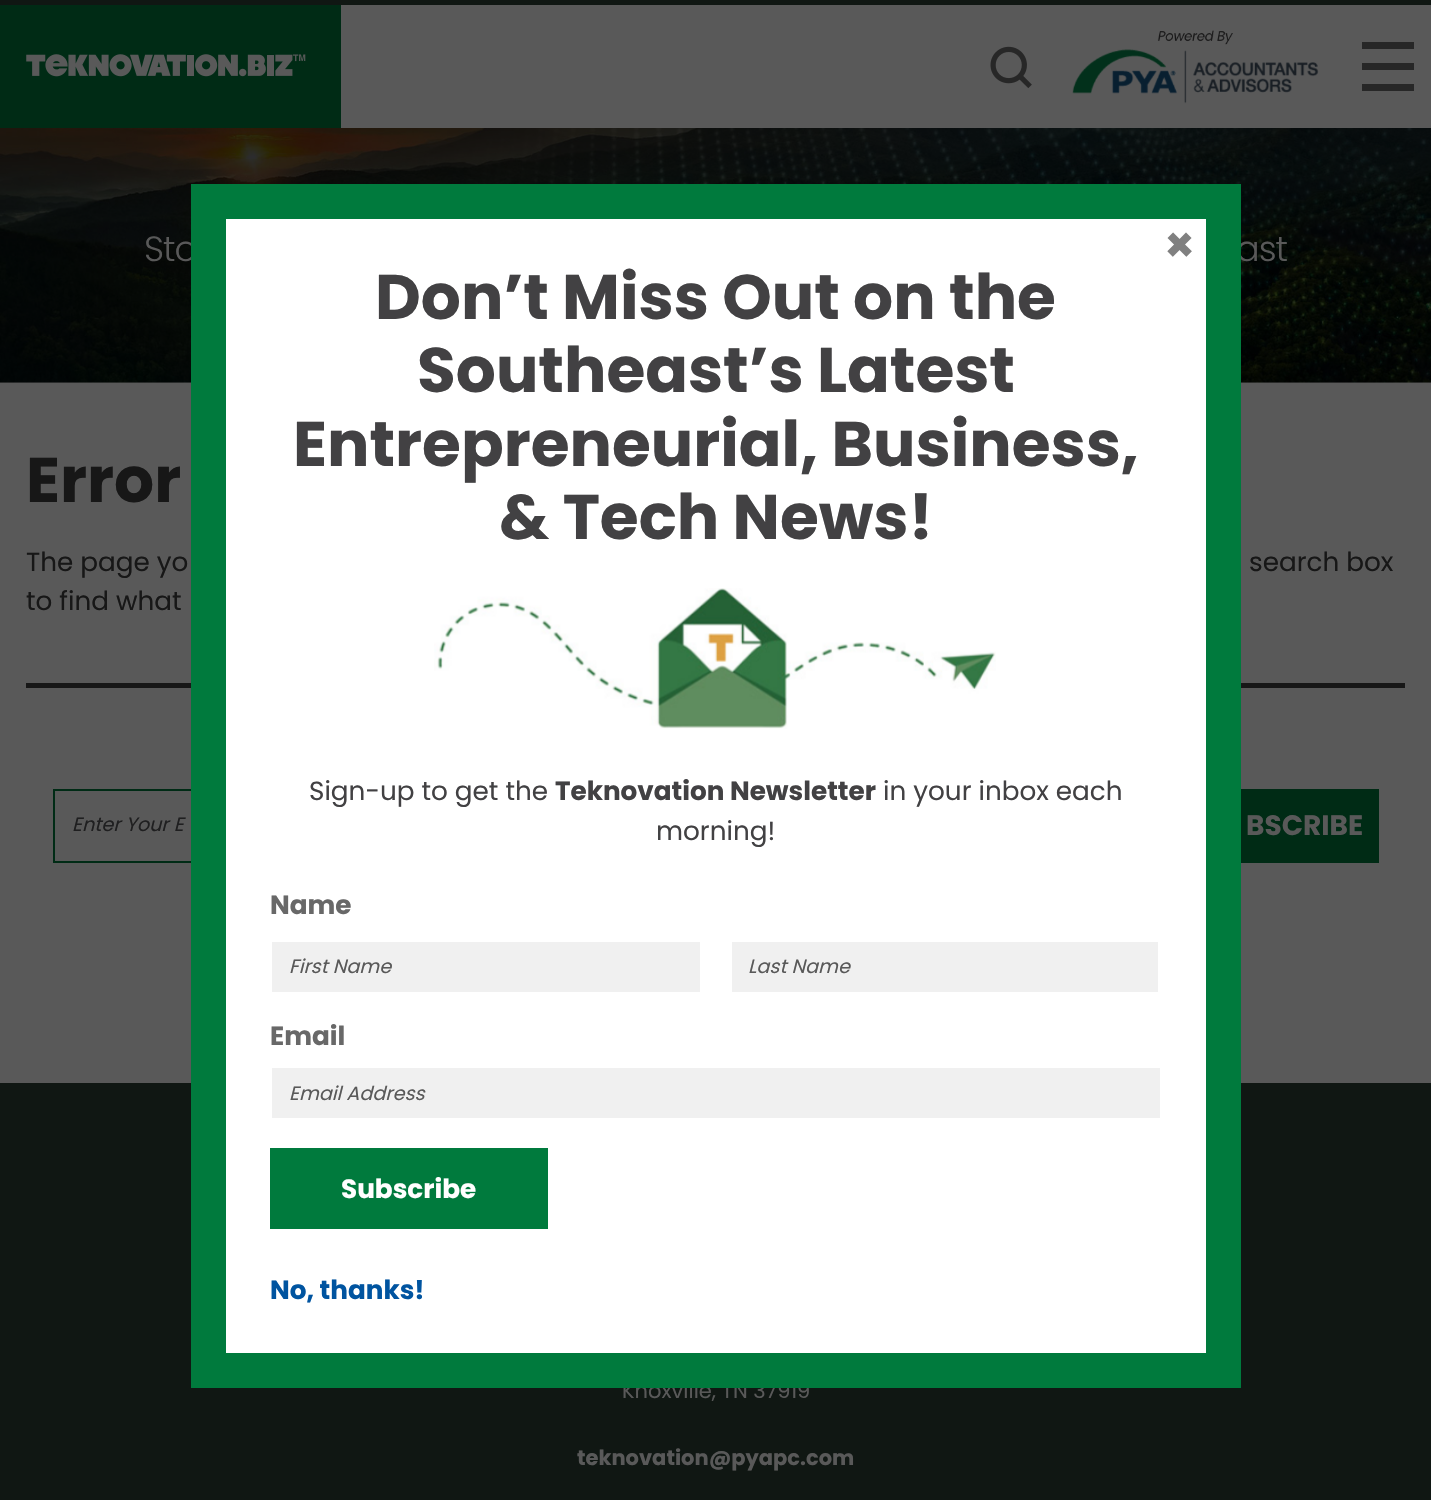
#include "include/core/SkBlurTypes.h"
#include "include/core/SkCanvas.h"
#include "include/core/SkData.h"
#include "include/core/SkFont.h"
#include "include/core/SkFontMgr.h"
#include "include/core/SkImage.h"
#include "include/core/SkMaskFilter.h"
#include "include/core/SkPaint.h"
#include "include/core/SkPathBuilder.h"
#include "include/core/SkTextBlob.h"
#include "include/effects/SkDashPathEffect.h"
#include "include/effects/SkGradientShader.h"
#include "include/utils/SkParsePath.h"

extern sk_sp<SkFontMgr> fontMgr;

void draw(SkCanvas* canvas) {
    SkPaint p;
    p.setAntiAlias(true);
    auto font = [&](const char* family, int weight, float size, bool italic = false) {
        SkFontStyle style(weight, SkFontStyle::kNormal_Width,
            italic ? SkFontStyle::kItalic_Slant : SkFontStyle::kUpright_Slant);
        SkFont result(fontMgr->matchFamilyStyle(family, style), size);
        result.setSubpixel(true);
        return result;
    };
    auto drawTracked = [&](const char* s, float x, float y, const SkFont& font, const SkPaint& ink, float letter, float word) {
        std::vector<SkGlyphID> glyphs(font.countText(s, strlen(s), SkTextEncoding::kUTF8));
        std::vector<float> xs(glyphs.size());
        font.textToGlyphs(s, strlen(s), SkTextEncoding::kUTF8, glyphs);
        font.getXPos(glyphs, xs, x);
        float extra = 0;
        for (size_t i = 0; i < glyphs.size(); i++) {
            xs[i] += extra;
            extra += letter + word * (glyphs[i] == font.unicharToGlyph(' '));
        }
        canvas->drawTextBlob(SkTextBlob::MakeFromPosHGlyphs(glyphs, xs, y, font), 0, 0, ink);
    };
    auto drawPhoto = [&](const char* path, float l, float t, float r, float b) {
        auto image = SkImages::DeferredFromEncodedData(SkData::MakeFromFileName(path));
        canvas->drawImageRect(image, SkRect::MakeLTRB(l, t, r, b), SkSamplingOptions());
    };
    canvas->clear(0xFF595959);
    drawPhoto("media/5.png", 0, 128, 1431, 383);
    auto font1 = font("Poppins", 300, 35);
    p.setColor(0xFF595959);
    drawTracked("Sto", 144, 261, font1, p, -1, 0);
    drawTracked("ast", 1236, 261, font1, p, -1, 0);
    p.setColor(0xFF171717);
    canvas->drawRect(SkRect::MakeLTRB(26, 683, 1405, 688), p);
    p.setStyle(SkPaint::kStroke_Style);
    p.setStrokeWidth(2);
    p.setColor(0xFF002B15);
    canvas->drawRect(SkRect::MakeLTRB(54, 790, 1378, 862), p);
    p.setStyle(SkPaint::kFill_Style);
    p.setColor(0xFF101713);
    canvas->drawRect(SkRect::MakeLTRB(0, 1083, 1431, 1500), p);
    auto font2 = font("Poppins", 400, 21);
    p.setColor(0xFF595959);
    canvas->drawString("Knoxville, TN 37919", 622, 1398, font2, p);
    p.setColor(0xFFFFFFFF);
    canvas->drawRect(SkRect::MakeLTRB(208.5f, 201.5f, 1223.5f, 1370.5f), p);
    p.setStyle(SkPaint::kStroke_Style);
    p.setStrokeWidth(35);
    p.setColor(0xFF007A3D);
    canvas->drawRect(SkRect::MakeLTRB(208.5f, 201.5f, 1223.5f, 1370.5f), p);
    auto font3 = font("Poppins", 700, 49);
    p.setStyle(SkPaint::kFill_Style);
    p.setColor(0xFF808080);
    canvas->drawString("×", 1164, 262, font3, p);
    auto font4 = font("Poppins", 700, 63);
    p.setColor(0xFF424143);
    {
        const struct { const char* s; float x, y; } items[] = {
            {"Don’t Miss Out on the", 375, 319},
            {"Southeast’s Latest", 417, 392},
            {"Entrepreneurial, Business,", 293, 466},
            {"& Tech News!", 499, 539},
        };
        for (auto [s, x, y] : items) {
            canvas->drawString(s, x, y, font4, p);
        }
    }
    drawPhoto("media/1.png", 434, 588, 996, 729);
    auto font5 = font("Poppins", 400, 26.25f);
    canvas->drawString("Sign-up to get the", 309, 800, font5, p);
    auto font6 = font("Poppins", 700, 26.25f);
    canvas->drawString("Teknovation Newsletter", 555, 800, font6, p);
    canvas->drawString("in your inbox each", 883, 800, font5, p);
    canvas->drawString("morning!", 656, 840, font5, p);
    p.setColor(0xFF686868);
    canvas->drawString("Name", 270, 914, font6, p);
    p.setColor(0xFFF0F0F0);
    canvas->drawRect(SkRect::MakeLTRB(272, 942, 700, 992), p);
    auto font7 = font("Poppins", 400, 19.25f, true);
    p.setColor(0xFF595959);
    canvas->drawString("First Name", 289, 973, font7, p);
    p.setColor(0xFFF0F0F0);
    canvas->drawRect(SkRect::MakeLTRB(732, 942, 1158, 992), p);
    p.setColor(0xFF595959);
    canvas->drawString("Last Name", 748, 973, font7, p);
    p.setColor(0xFF686868);
    canvas->drawString("Email", 270, 1045, font6, p);
    p.setColor(0xFFF0F0F0);
    canvas->drawRect(SkRect::MakeLTRB(272, 1068, 1160, 1118), p);
    p.setColor(0xFF595959);
    canvas->drawString("Email Address", 289, 1100, font7, p);
    p.setColor(0xFF007A3D);
    canvas->drawRect(SkRect::MakeLTRB(270, 1148, 548, 1229), p);
    p.setColor(0xFFFFFFFF);
    canvas->drawString("Subscribe", 341, 1198, font6, p);
    p.setColor(0xFF0054A0);
    canvas->drawString("No, thanks!", 270, 1299, font6, p);
    p.setColor(0xFF101713);
    canvas->drawRect(SkRect::MakeLTRB(0, 0, 1431, 5), p);
    p.setColor(0xFF002B15);
    canvas->drawRect(SkRect::MakeLTRB(0, 5, 341, 128), p);
    drawPhoto("media/2.png", 26, 54, 306, 77);
    drawPhoto("media/3.png", 990, 46, 1032, 89);
    drawPhoto("media/4.png", 1072, 30, 1319, 104);
    {
        const struct { float l, t, r, b; SkColor color; } items[] = {
            {1362, 42, 1414, 49, 0xFF272727},
            {1362, 63, 1414, 70, 0xFF272727},
            {1362, 84, 1414, 91, 0xFF272727},
        };
        for (auto [l, t, r, b, color] : items) {
            p.setColor(color);
            canvas->drawRect(SkRect::MakeLTRB(l, t, r, b), p);
        }
    }
    p.setColor(0xFF171717);
    canvas->drawString("Error", 26, 502, font4, p);
    {
        const struct { const char* s; float x, y; } items[] = {
            {"The page yo", 26, 571},
            {"search box", 1249, 571},
            {"to find what", 26, 610},
        };
        for (auto [s, x, y] : items) {
            canvas->drawString(s, x, y, font5, p);
        }
    }
    p.setColor(0xFF1F1F20);
    canvas->drawString("Enter Your E", 72, 831, font7, p);
    p.setColor(0xFF002B15);
    canvas->drawRect(SkRect::MakeLTRB(1241, 791, 1377, 861), p);
    auto font8 = font("Poppins", 700, 28);
    p.setColor(0xFF595959);
    canvas->drawString("BSCRIBE", 1246, 835, font8, p);
    auto font9 = font("Poppins", 700, 21);
    canvas->drawString("teknovation@pyapc.com", 577, 1465, font9, p);
}
